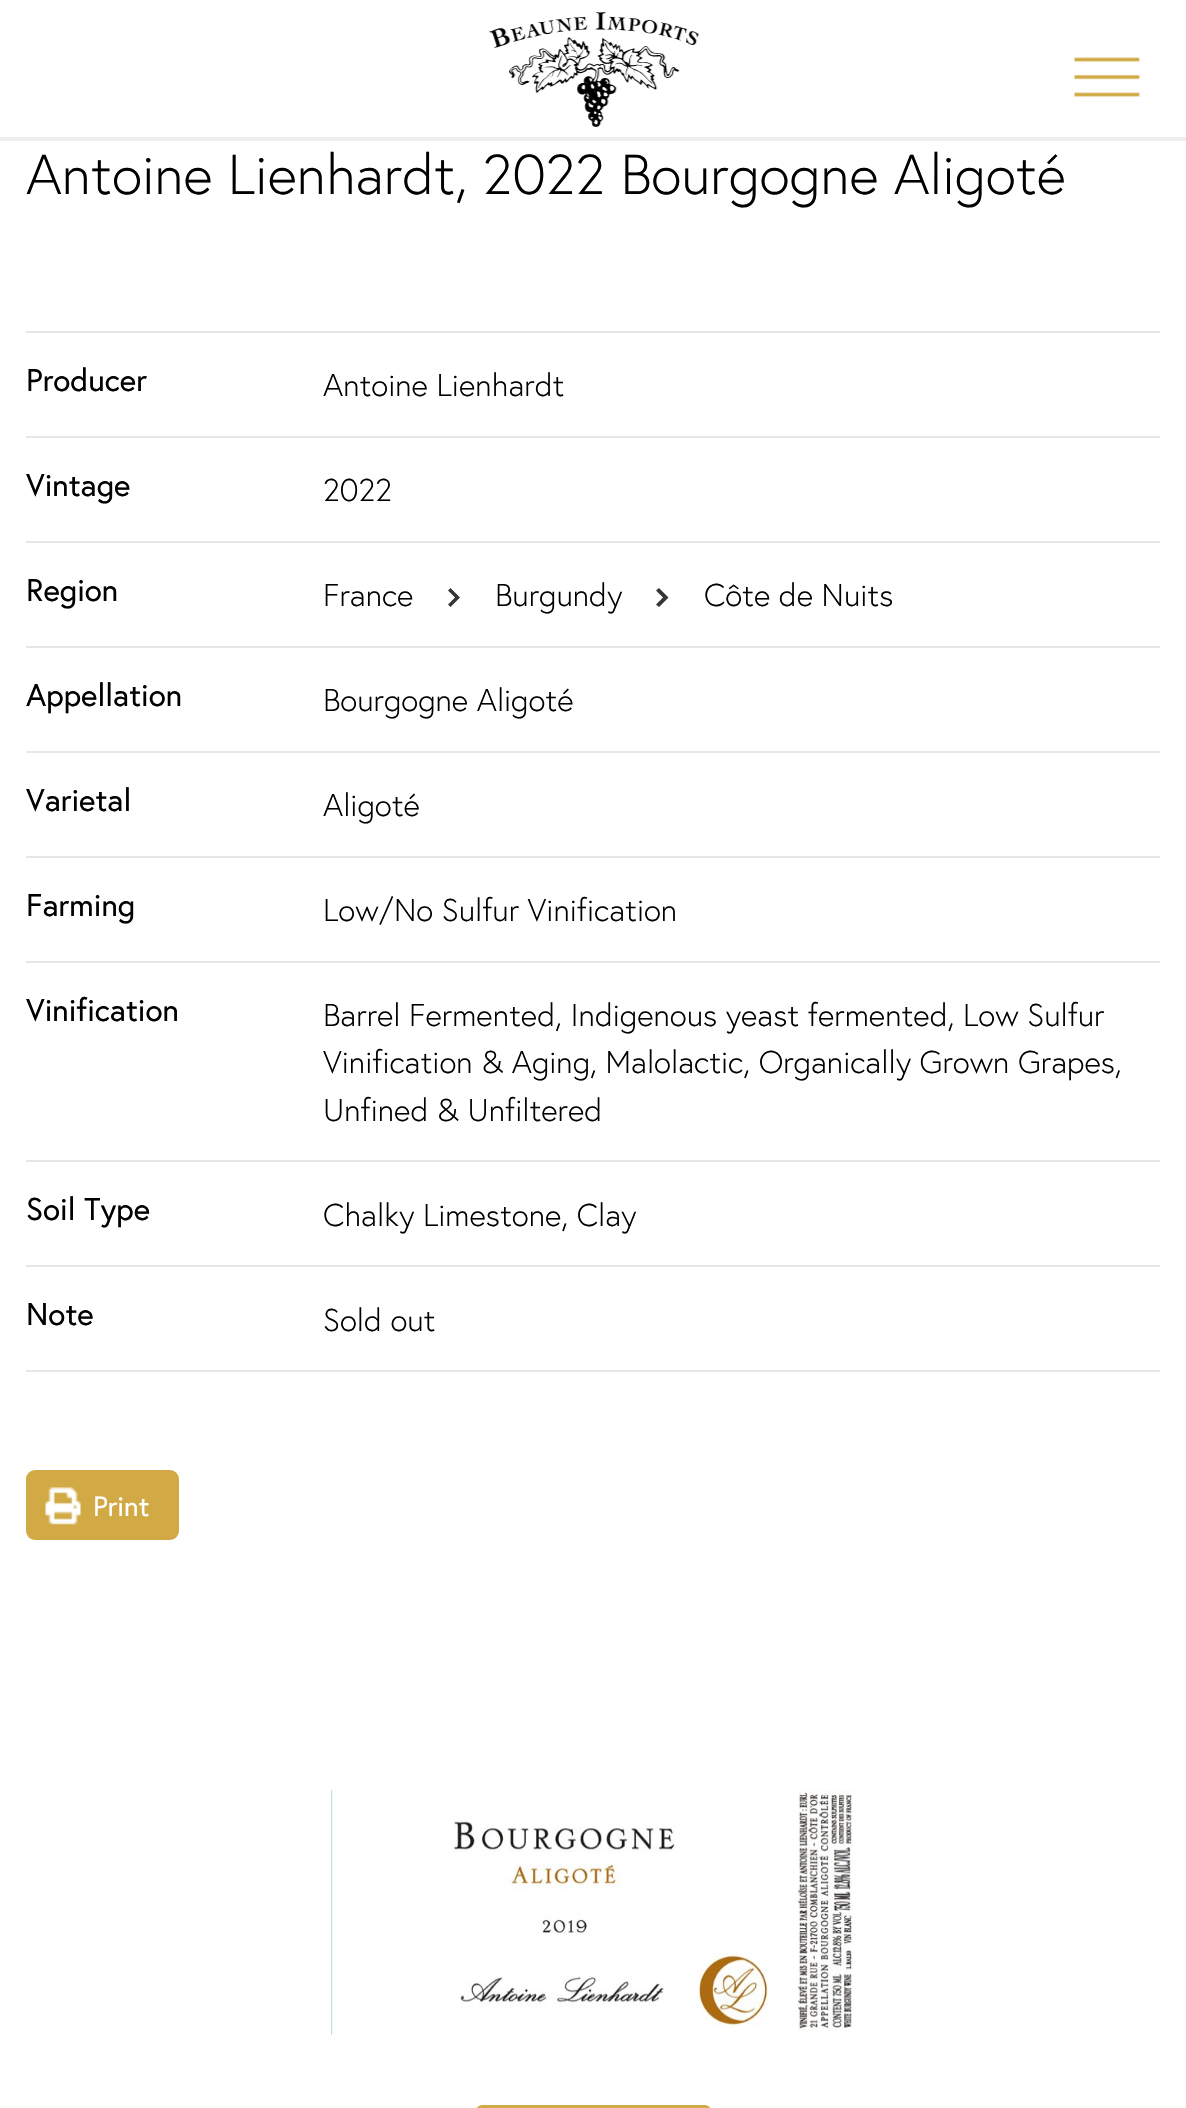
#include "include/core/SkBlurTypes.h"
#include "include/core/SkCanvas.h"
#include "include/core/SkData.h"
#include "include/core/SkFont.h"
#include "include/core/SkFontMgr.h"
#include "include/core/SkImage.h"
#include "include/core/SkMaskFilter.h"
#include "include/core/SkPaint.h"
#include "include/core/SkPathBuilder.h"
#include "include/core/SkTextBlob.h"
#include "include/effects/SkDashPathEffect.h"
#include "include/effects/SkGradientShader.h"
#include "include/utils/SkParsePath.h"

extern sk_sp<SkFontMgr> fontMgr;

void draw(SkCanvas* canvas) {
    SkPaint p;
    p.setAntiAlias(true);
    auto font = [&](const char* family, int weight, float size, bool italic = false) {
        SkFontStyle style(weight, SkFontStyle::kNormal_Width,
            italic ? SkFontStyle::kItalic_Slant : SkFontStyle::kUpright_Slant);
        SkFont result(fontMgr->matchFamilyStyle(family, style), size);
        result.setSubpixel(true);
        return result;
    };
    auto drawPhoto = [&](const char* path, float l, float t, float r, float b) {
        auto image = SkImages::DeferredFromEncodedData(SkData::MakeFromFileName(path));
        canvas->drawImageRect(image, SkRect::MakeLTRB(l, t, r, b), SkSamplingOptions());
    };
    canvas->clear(0xFFFFFFFF);
    p.setColor(0xFFEEEEEE);
    canvas->drawRect(SkRect::MakeLTRB(0, 137, 1186, 141), p);
    drawPhoto("media/1.png", 489, 12, 700, 127);
    drawPhoto("media/2.png", 1071, 57, 1140, 97);
    auto font1 = font("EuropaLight", 300, 56);
    p.setColor(0xFF000000);
    canvas->drawString("Antoine Lienhardt, 2022 Bourgogne Aligoté", 26, 194, font1, p);
    p.setColor(0xFFE6E6E6);
    canvas->drawRect(SkRect::MakeLTRB(26, 331, 1160, 333), p);
    auto font2 = font("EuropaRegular", 400, 31.5f);
    p.setColor(0xFF000000);
    canvas->drawString("Producer", 26, 391, font2, p);
    auto font3 = font("EuropaLight", 300, 31.5f);
    canvas->drawString("Antoine Lienhardt", 323, 396, font3, p);
    p.setColor(0xFFE6E6E6);
    canvas->drawRect(SkRect::MakeLTRB(26, 436, 1160, 438), p);
    p.setColor(0xFF000000);
    canvas->drawString("Vintage", 26, 496, font2, p);
    canvas->drawString("2022", 323, 501, font3, p);
    p.setColor(0xFFE6E6E6);
    canvas->drawRect(SkRect::MakeLTRB(26, 541, 1160, 543), p);
    p.setColor(0xFF000000);
    canvas->drawString("Region", 26, 601, font2, p);
    canvas->drawString("France", 323, 606, font3, p);
    p.setColor(0xFF373435);
    canvas->drawPath(SkPathBuilder(SkPathFillType::kEvenOdd).moveTo(450.5f, 607).lineTo(460, 597.5f).lineTo(450.5f, 588).lineTo(448, 590.5f).lineTo(455, 597.5f).lineTo(448, 604.5f).close().detach(), p);
    p.setColor(0xFF000000);
    canvas->drawString("Burgundy", 495, 606, font3, p);
    p.setColor(0xFF373435);
    canvas->drawPath(SkPathBuilder(SkPathFillType::kEvenOdd).moveTo(659, 607).lineTo(668.5f, 597.5f).lineTo(659, 588).lineTo(656, 590.5f).lineTo(663, 597.5f).lineTo(656, 604.5f).close().detach(), p);
    p.setColor(0xFF000000);
    canvas->drawString("Côte de Nuits", 704, 606, font3, p);
    p.setColor(0xFFE6E6E6);
    canvas->drawRect(SkRect::MakeLTRB(26, 646, 1160, 648), p);
    p.setColor(0xFF000000);
    canvas->drawString("Appellation", 26, 706, font2, p);
    canvas->drawString("Bourgogne Aligoté", 323, 711, font3, p);
    p.setColor(0xFFE6E6E6);
    canvas->drawRect(SkRect::MakeLTRB(26, 751, 1160, 753), p);
    p.setColor(0xFF000000);
    canvas->drawString("Varietal", 26, 811, font2, p);
    canvas->drawString("Aligoté", 323, 816, font3, p);
    p.setColor(0xFFE6E6E6);
    canvas->drawRect(SkRect::MakeLTRB(26, 856, 1160, 858), p);
    p.setColor(0xFF000000);
    canvas->drawString("Farming", 26, 916, font2, p);
    canvas->drawString("Low/No Sulfur Vinification", 323, 921, font3, p);
    p.setColor(0xFFE6E6E6);
    canvas->drawRect(SkRect::MakeLTRB(26, 961, 1160, 963), p);
    p.setColor(0xFF000000);
    canvas->drawString("Vinification", 26, 1021, font2, p);
    {
        const struct { const char* s; float x, y; } items[] = {
            {"Barrel Fermented, Indigenous yeast fermented, Low Sulfur", 323, 1026},
            {"Vinification & Aging, Malolactic, Organically Grown Grapes,", 323, 1073},
            {"Unfined & Unfiltered", 323, 1121},
        };
        for (auto [s, x, y] : items) {
            canvas->drawString(s, x, y, font3, p);
        }
    }
    p.setColor(0xFFE6E6E6);
    canvas->drawRect(SkRect::MakeLTRB(26, 1160, 1160, 1162), p);
    p.setColor(0xFF000000);
    canvas->drawString("Soil Type", 26, 1220, font2, p);
    canvas->drawString("Chalky Limestone, Clay", 323, 1226, font3, p);
    p.setColor(0xFFE6E6E6);
    canvas->drawRect(SkRect::MakeLTRB(26, 1265, 1160, 1267), p);
    p.setColor(0xFF000000);
    canvas->drawString("Note", 26, 1325, font2, p);
    canvas->drawString("Sold out", 323, 1331, font3, p);
    p.setColor(0xFFE6E6E6);
    canvas->drawRect(SkRect::MakeLTRB(26, 1370, 1160, 1372), p);
    p.setColor(0xFFD2AA45);
    canvas->drawRoundRect(SkRect::MakeLTRB(26, 1470, 179, 1540), 9, 9, p);
    drawPhoto("media/3.png", 45, 1487, 81, 1525);
    auto font4 = font("EuropaRegular", 400, 28);
    p.setColor(0xFFFFFFFF);
    canvas->drawString("Print", 93, 1516, font4, p);
    drawPhoto("media/4.png", 331, 1790, 853, 2035);
    p.setColor(0xFFD2AA45);
    canvas->drawRoundRect(SkRect::MakeLTRB(476, 2105, 711, 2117), 9, 9, p);
}
